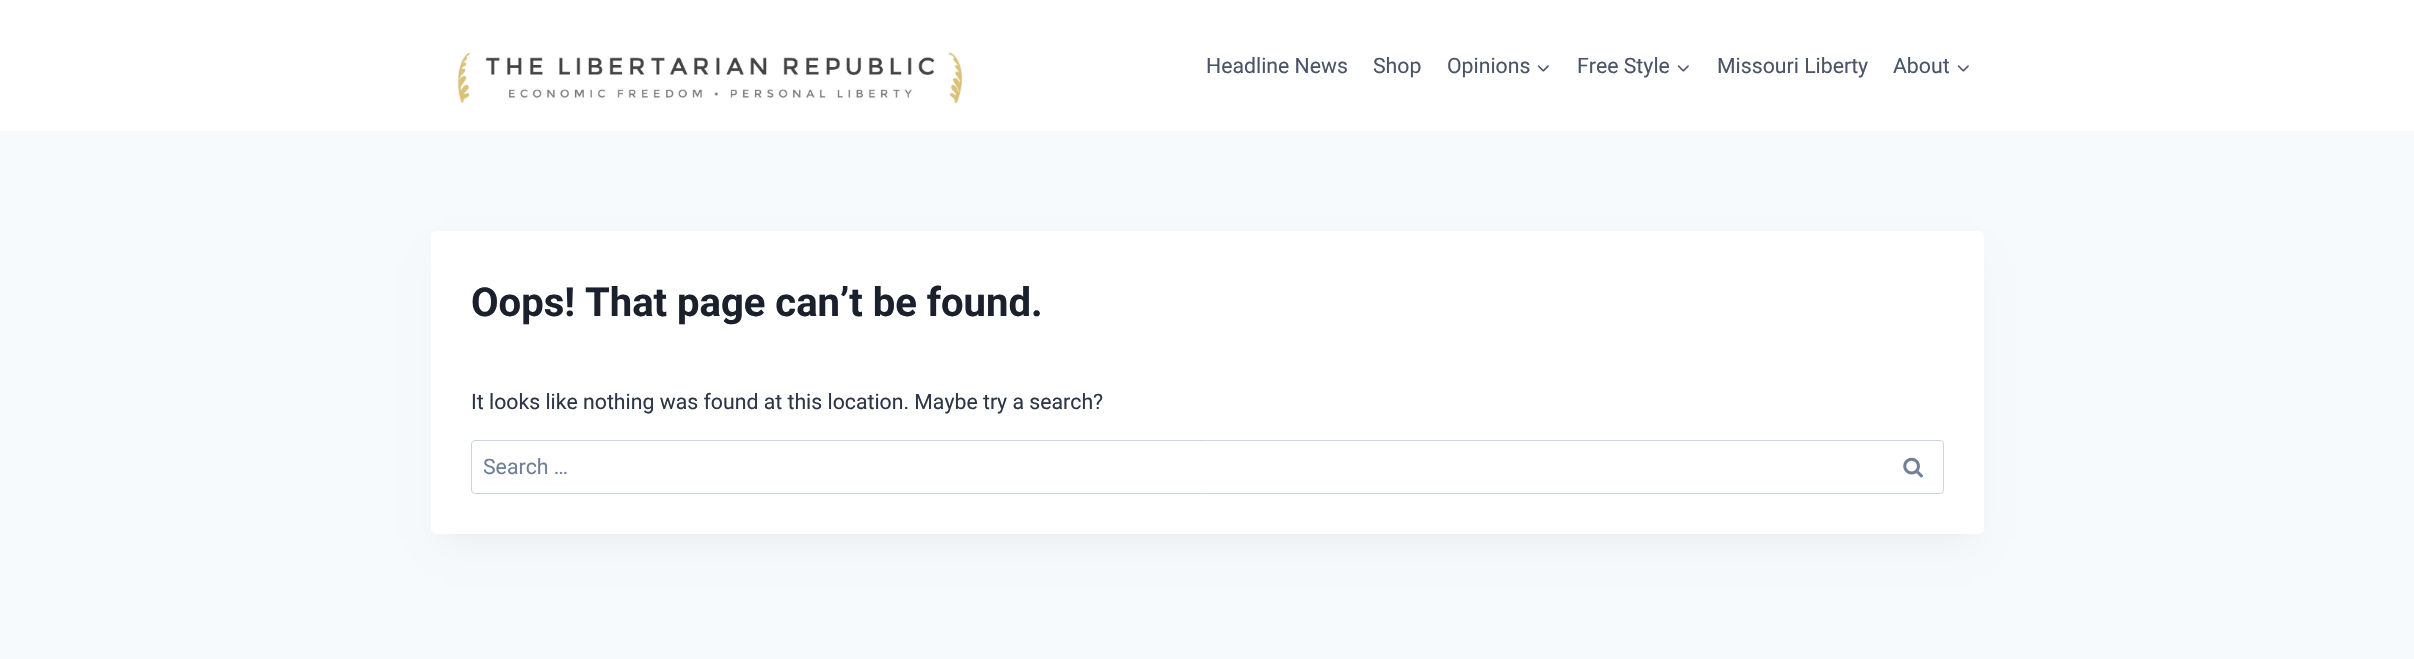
#include "include/core/SkBlurTypes.h"
#include "include/core/SkCanvas.h"
#include "include/core/SkData.h"
#include "include/core/SkFont.h"
#include "include/core/SkFontMgr.h"
#include "include/core/SkImage.h"
#include "include/core/SkMaskFilter.h"
#include "include/core/SkPaint.h"
#include "include/core/SkPathBuilder.h"
#include "include/core/SkTextBlob.h"
#include "include/effects/SkDashPathEffect.h"
#include "include/effects/SkGradientShader.h"
#include "include/utils/SkParsePath.h"

extern sk_sp<SkFontMgr> fontMgr;

void draw(SkCanvas* canvas) {
    SkPaint p;
    p.setAntiAlias(true);
    auto font = [&](const char* family, int weight, float size, bool italic = false) {
        SkFontStyle style(weight, SkFontStyle::kNormal_Width,
            italic ? SkFontStyle::kItalic_Slant : SkFontStyle::kUpright_Slant);
        SkFont result(fontMgr->matchFamilyStyle(family, style), size);
        result.setSubpixel(true);
        return result;
    };
    auto drawPhoto = [&](const char* path, float l, float t, float r, float b) {
        auto image = SkImages::DeferredFromEncodedData(SkData::MakeFromFileName(path));
        canvas->drawImageRect(image, SkRect::MakeLTRB(l, t, r, b), SkSamplingOptions());
    };
    canvas->clear(0xFFF7FAFC);
    p.setColor(0xFFFFFFFF);
    canvas->drawRect(SkRect::MakeLTRB(0, 0, 2414, 131), p);
    drawPhoto("media/1.png", 456, 52, 966, 105);
    auto font1 = font("Roboto", 400, 21.25f);
    p.setColor(0xFF4A5568);
    {
        const struct { const char* s; float x, y; } items[] = {
            {"Headline News", 1206, 73},
            {"Shop", 1373, 73},
            {"Opinions", 1447, 73},
        };
        for (auto [s, x, y] : items) {
            canvas->drawString(s, x, y, font1, p);
        }
    }
    drawPhoto("media/2.png", 1537, 65, 1549, 72);
    canvas->drawString("Free Style", 1577, 73, font1, p);
    drawPhoto("media/2.png", 1677, 65, 1689, 72);
    canvas->drawString("Missouri Liberty", 1717, 73, font1, p);
    canvas->drawString("About", 1893, 73, font1, p);
    drawPhoto("media/2.png", 1957, 65, 1969, 72);
    p.setColor(0x0D000000);
    p.setMaskFilter(SkMaskFilter::MakeBlur(kNormal_SkBlurStyle, 15.5f));
    canvas->drawRect(SkRect::MakeLTRB(444, 263, 1971, 540), p);
    p.setMaskFilter(nullptr);
    p.setColor(0xFFFFFFFF);
    canvas->drawRoundRect(SkRect::MakeLTRB(431, 231, 1984, 534), 5, 5, p);
    auto font2 = font("Roboto", 700, 40);
    p.setColor(0xFF1A202C);
    canvas->drawString("Oops! That page can’t be found.", 471, 316, font2, p);
    p.setColor(0xFF2D3748);
    canvas->drawString("It looks like nothing was found at this location. Maybe try a search?", 471, 409, font1, p);
    p.setStyle(SkPaint::kStroke_Style);
    p.setStrokeWidth(1);
    p.setColor(0xFFCBD5E0);
    canvas->drawRoundRect(SkRect::MakeLTRB(471.5f, 440.5f, 1943.5f, 493.5f), 3.5f, 3.5f, p);
    p.setStyle(SkPaint::kFill_Style);
    p.setColor(0xFF718096);
    canvas->drawString("Search …", 483, 474, font1, p);
    drawPhoto("media/3.png", 1903, 457, 1923, 478);
}
